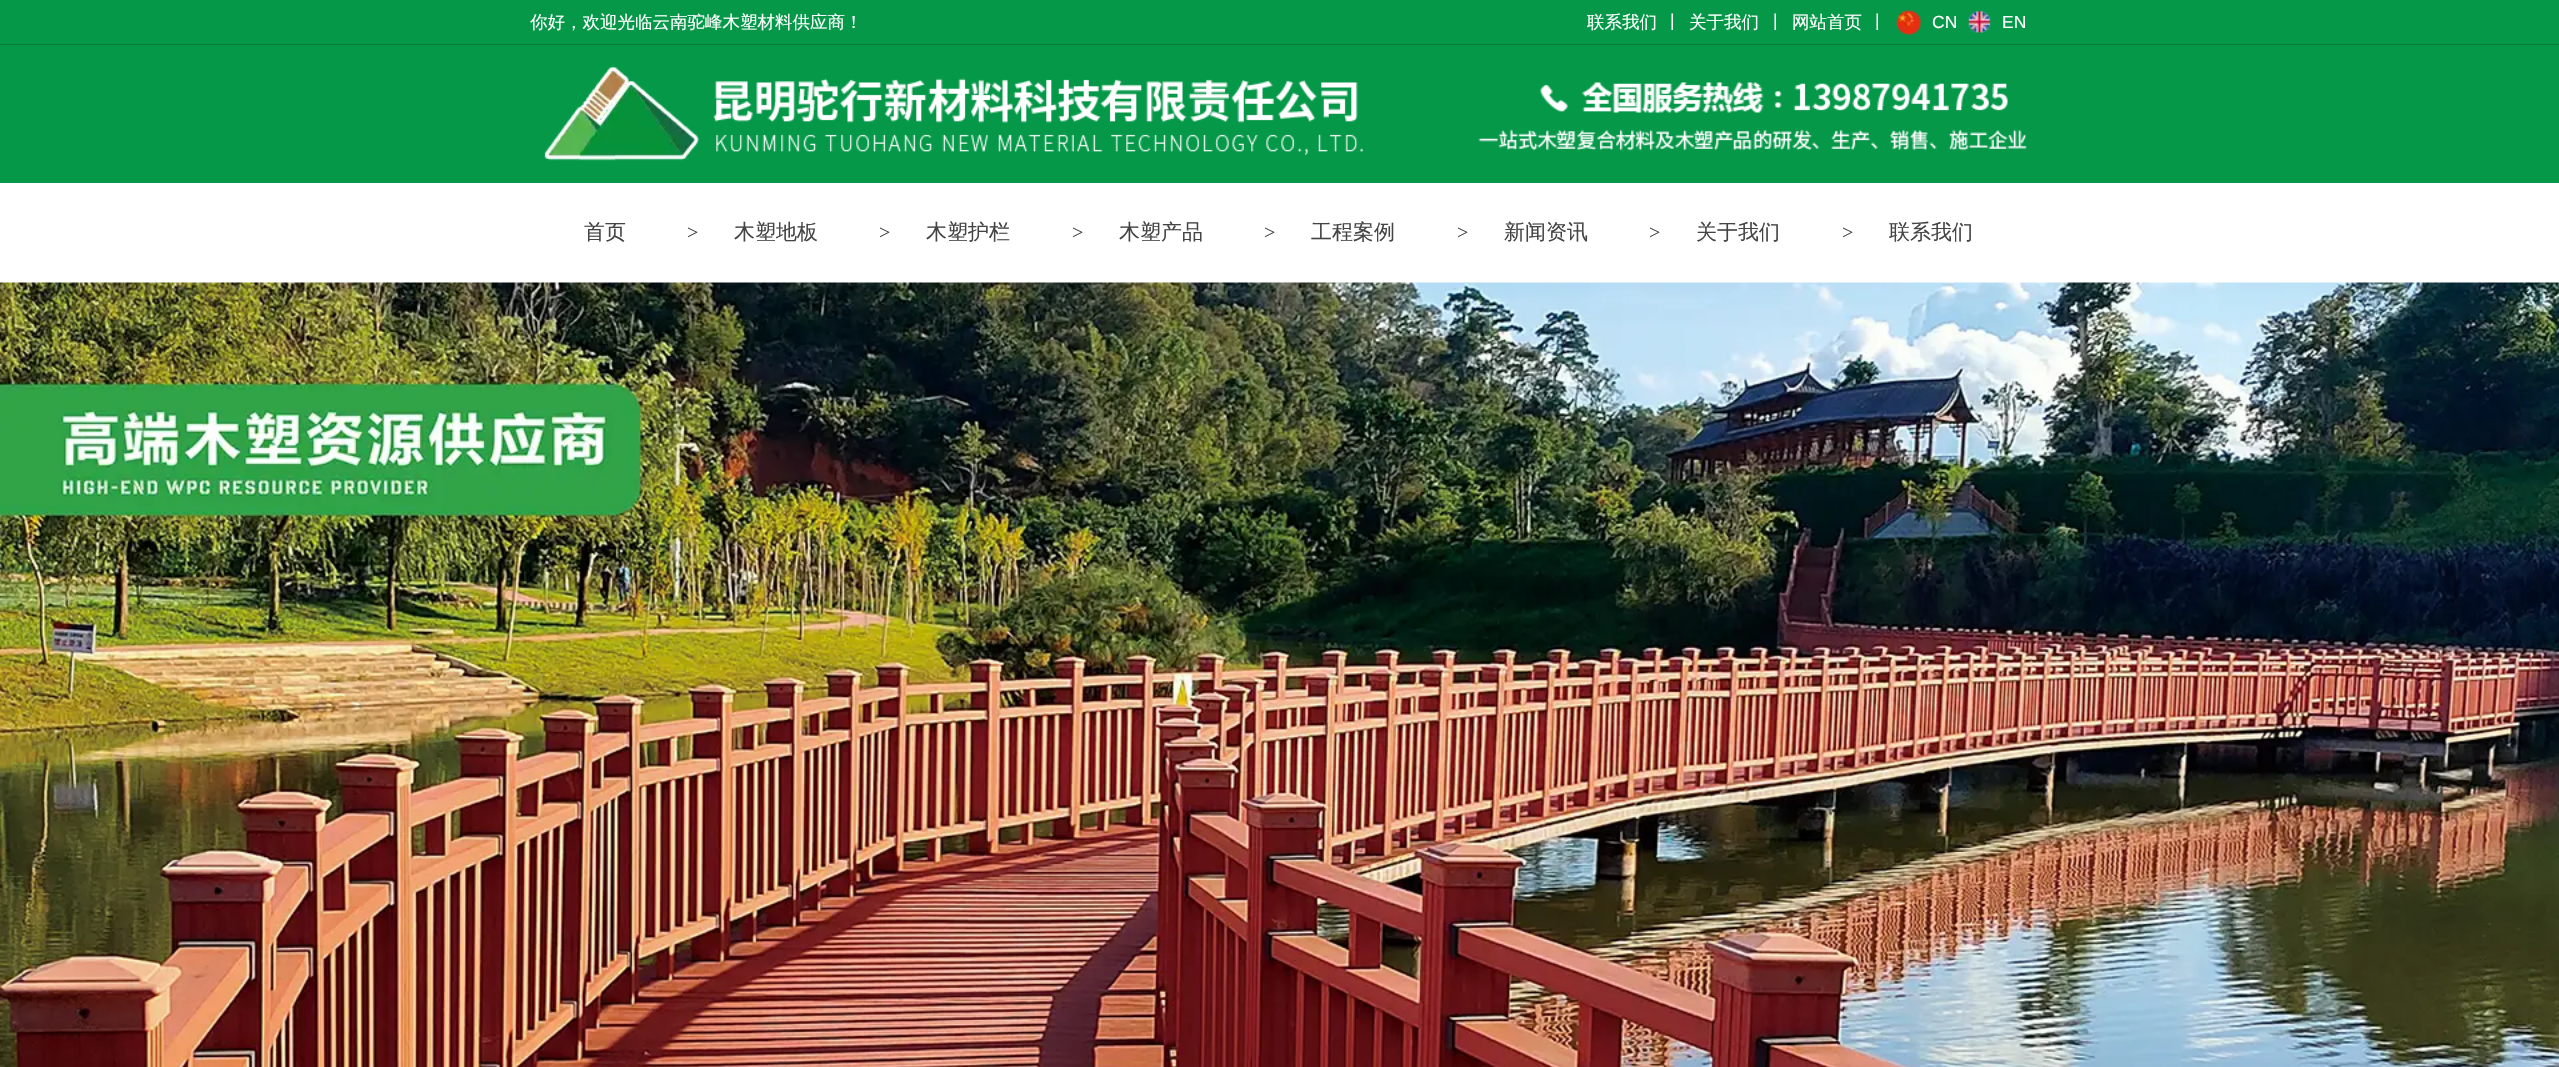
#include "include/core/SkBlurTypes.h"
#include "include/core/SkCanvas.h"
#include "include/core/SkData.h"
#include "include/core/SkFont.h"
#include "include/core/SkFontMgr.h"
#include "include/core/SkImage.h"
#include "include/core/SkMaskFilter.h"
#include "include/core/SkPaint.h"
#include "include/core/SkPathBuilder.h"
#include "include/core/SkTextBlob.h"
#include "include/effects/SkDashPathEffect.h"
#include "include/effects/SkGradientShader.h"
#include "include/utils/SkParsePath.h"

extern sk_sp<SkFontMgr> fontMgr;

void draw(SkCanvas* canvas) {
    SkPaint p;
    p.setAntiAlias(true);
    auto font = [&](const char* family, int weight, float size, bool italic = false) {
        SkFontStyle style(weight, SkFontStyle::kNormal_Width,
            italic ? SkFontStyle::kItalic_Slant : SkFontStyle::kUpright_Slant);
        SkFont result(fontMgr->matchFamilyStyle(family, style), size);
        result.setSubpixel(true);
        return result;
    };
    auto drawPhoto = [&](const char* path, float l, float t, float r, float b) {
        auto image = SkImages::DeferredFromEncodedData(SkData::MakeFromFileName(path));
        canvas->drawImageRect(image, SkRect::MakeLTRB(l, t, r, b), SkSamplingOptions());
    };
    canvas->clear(0xFF069849);
    p.setColor(0xFF057A3A);
    canvas->drawRect(SkRect::MakeLTRB(0, 44, 2559, 45), p);
    auto font1 = font("WenQuanYi Zen Hei", 500, 17.5f);
    p.setColor(0xFFFFFFFF);
    {
        const struct { const char* s; float x, y; } items[] = {
            {"你好，欢迎光临云南驼峰木塑材料供应商！", 530, 28},
            {"联系我们", 1587, 28},
            {"丨", 1664, 28},
            {"关于我们", 1689, 28},
            {"丨", 1767, 28},
            {"网站首页", 1792, 28},
            {"丨", 1869, 28},
        };
        for (auto [s, x, y] : items) {
            canvas->drawString(s, x, y, font1, p);
        }
    }
    drawPhoto("media/1.png", 1896, 9, 1922, 36);
    auto font2 = font("Liberation Sans", 400, 17.5f);
    canvas->drawString("CN", 1932, 28, font2, p);
    drawPhoto("media/2.png", 1968, 11, 1991, 33);
    canvas->drawString("EN", 2002, 28, font2, p);
    drawPhoto("media/3.png", 544, 66, 2027, 161);
    canvas->drawRect(SkRect::MakeLTRB(0, 183, 2559, 283), p);
    auto font3 = font("WenQuanYi Zen Hei", 500, 21);
    p.setColor(0xFF444444);
    canvas->drawString("首页", 584, 239, font3, p);
    auto font4 = font("Liberation Serif", 400, 20);
    canvas->drawString(">", 687, 239, font4, p);
    canvas->drawString("木塑地板", 734, 239, font3, p);
    canvas->drawString(">", 879, 239, font4, p);
    canvas->drawString("木塑护栏", 926, 239, font3, p);
    canvas->drawString(">", 1072, 239, font4, p);
    canvas->drawString("木塑产品", 1119, 239, font3, p);
    canvas->drawString(">", 1264, 239, font4, p);
    canvas->drawString("工程案例", 1311, 239, font3, p);
    canvas->drawString(">", 1457, 239, font4, p);
    canvas->drawString("新闻资讯", 1504, 239, font3, p);
    canvas->drawString(">", 1649, 239, font4, p);
    canvas->drawString("关于我们", 1696, 239, font3, p);
    canvas->drawString(">", 1842, 239, font4, p);
    canvas->drawString("联系我们", 1889, 239, font3, p);
    drawPhoto("media/4.png", 0, 282, 2559, 1067);
}
